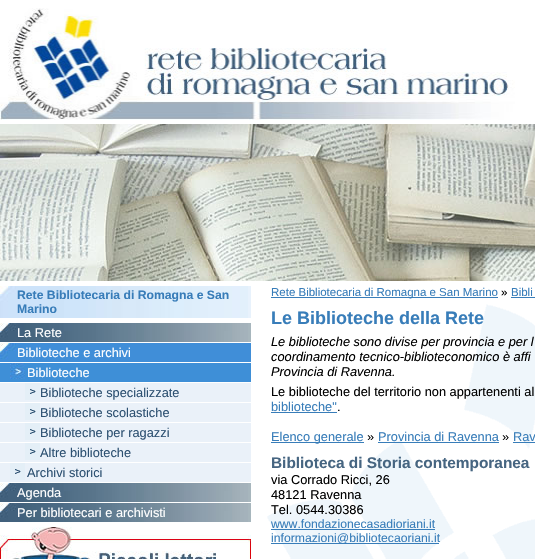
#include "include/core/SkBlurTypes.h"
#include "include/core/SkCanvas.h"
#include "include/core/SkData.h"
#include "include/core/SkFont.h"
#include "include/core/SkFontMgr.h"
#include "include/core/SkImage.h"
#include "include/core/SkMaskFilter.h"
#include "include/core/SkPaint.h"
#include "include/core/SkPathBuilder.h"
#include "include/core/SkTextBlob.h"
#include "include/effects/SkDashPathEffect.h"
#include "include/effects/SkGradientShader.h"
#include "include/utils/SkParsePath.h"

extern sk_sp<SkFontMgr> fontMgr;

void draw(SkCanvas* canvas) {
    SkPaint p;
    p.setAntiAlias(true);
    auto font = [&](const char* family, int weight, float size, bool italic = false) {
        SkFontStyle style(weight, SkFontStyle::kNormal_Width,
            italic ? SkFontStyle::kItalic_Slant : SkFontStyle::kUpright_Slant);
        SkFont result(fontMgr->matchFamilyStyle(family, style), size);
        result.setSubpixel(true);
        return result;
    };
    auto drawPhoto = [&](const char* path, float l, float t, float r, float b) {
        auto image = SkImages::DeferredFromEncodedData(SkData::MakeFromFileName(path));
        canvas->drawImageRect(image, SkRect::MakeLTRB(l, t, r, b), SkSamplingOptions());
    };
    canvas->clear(0xFFFFFFFF);
    drawPhoto("media/1.png", 0, 8, 515, 120);
    drawPhoto("media/2.png", 0, 124, 535, 281);
    drawPhoto("media/3.png", 0, 286, 251, 318);
    auto font1 = font("Liberation Sans", 700, 12.2f);
    p.setColor(0xFF387DB9);
    canvas->drawString("Rete Bibliotecaria di Romagna e San", 17, 299, font1, p);
    canvas->drawString("Marino", 17, 313, font1, p);
    drawPhoto("media/4.png", 0, 323, 251, 342);
    auto font2 = font("Liberation Sans", 400, 12.8f);
    p.setColor(0xFFFFFFFF);
    canvas->drawString("La Rete", 17, 337, font2, p);
    drawPhoto("media/5.png", 0, 343, 251, 362);
    canvas->drawString("Biblioteche e archivi", 17, 357, font2, p);
    p.setColor(0xFF3E8FD7);
    canvas->drawRect(SkRect::MakeLTRB(0, 363, 251, 382), p);
    drawPhoto("media/6.png", 10, 363, 25, 379);
    p.setColor(0xFFFFFFFF);
    canvas->drawString("Biblioteche", 27, 377, font2, p);
    p.setColor(0xFFEAF1F9);
    canvas->drawRect(SkRect::MakeLTRB(0, 383, 251, 402), p);
    drawPhoto("media/7.png", 25, 383, 40, 400);
    p.setColor(0xFF2C5071);
    canvas->drawString("Biblioteche specializzate", 40, 397, font2, p);
    p.setColor(0xFFEAF1F9);
    canvas->drawRect(SkRect::MakeLTRB(0, 403, 251, 422), p);
    drawPhoto("media/7.png", 25, 403, 40, 420);
    p.setColor(0xFF2C5071);
    canvas->drawString("Biblioteche scolastiche", 40, 417, font2, p);
    p.setColor(0xFFEAF1F9);
    canvas->drawRect(SkRect::MakeLTRB(0, 423, 251, 442), p);
    drawPhoto("media/7.png", 25, 423, 40, 440);
    p.setColor(0xFF2C5071);
    canvas->drawString("Biblioteche per ragazzi", 40, 437, font2, p);
    p.setColor(0xFFEAF1F9);
    canvas->drawRect(SkRect::MakeLTRB(0, 443, 251, 462), p);
    drawPhoto("media/7.png", 25, 443, 40, 460);
    p.setColor(0xFF2C5071);
    canvas->drawString("Altre biblioteche", 40, 457, font2, p);
    p.setColor(0xFFEAF1F9);
    canvas->drawRect(SkRect::MakeLTRB(0, 463, 251, 482), p);
    drawPhoto("media/7.png", 10, 463, 25, 480);
    p.setColor(0xFF2C5071);
    canvas->drawString("Archivi storici", 27, 477, font2, p);
    drawPhoto("media/4.png", 0, 483, 251, 502);
    p.setColor(0xFFFFFFFF);
    canvas->drawString("Agenda", 17, 497, font2, p);
    drawPhoto("media/4.png", 0, 503, 251, 522);
    canvas->drawString("Per bibliotecari e archivisti", 17, 517, font2, p);
    drawPhoto("media/8.png", 0, 527, 251, 559);
    drawPhoto("media/9.png", 267, 304, 535, 559);
    p.setColor(0xFF387DB9);
    canvas->drawRect(SkRect::MakeLTRB(271, 297, 498, 298), p);
    auto font3 = font("Liberation Sans", 400, 11.5f);
    canvas->drawString("Rete Bibliotecaria di Romagna e San Marino", 271, 296, font3, p);
    p.setColor(0xFF000000);
    canvas->drawString("»", 501, 296, font3, p);
    p.setColor(0xFF387DB9);
    canvas->drawString("Bibli", 511, 296, font3, p);
    canvas->drawRect(SkRect::MakeLTRB(511, 297, 535, 298), p);
    auto font4 = font("Liberation Sans", 700, 18);
    canvas->drawString("Le Biblioteche della Rete", 271, 324, font4, p);
    auto font5 = font("Liberation Sans", 400, 12.8f, true);
    p.setColor(0xFF000000);
    {
        const struct { const char* s; float x, y; } items[] = {
            {"Le biblioteche sono divise per provincia e per l", 271, 346},
            {"coordinamento tecnico-biblioteconomico è affi", 271, 361},
            {"Provincia di Ravenna.", 271, 376},
        };
        for (auto [s, x, y] : items) {
            canvas->drawString(s, x, y, font5, p);
        }
    }
    canvas->drawString("Le biblioteche del territorio non appartenenti al", 271, 396, font2, p);
    p.setColor(0xFF387DB9);
    canvas->drawString("biblioteche\"", 271, 411, font2, p);
    canvas->drawRect(SkRect::MakeLTRB(271, 412, 337, 413), p);
    p.setColor(0xFF000000);
    canvas->drawString(".", 337, 411, font2, p);
    p.setColor(0xFF387DB9);
    canvas->drawRect(SkRect::MakeLTRB(271, 442, 364, 443), p);
    canvas->drawString("Elenco generale", 271, 441, font2, p);
    p.setColor(0xFF000000);
    canvas->drawString("»", 367, 441, font2, p);
    p.setColor(0xFF387DB9);
    canvas->drawString("Provincia di Ravenna", 378, 441, font2, p);
    canvas->drawRect(SkRect::MakeLTRB(378, 442, 499, 443), p);
    p.setColor(0xFF000000);
    canvas->drawString("»", 502, 441, font2, p);
    p.setColor(0xFF387DB9);
    canvas->drawString("Rav", 513, 441, font2, p);
    canvas->drawRect(SkRect::MakeLTRB(513, 442, 535, 443), p);
    auto font6 = font("Liberation Sans", 700, 15.4f);
    p.setColor(0xFF466581);
    canvas->drawString("Biblioteca di Storia contemporanea", 271, 468, font6, p);
    p.setColor(0xFF000000);
    {
        const struct { const char* s; float x, y; } items[] = {
            {"via Corrado Ricci, 26", 271, 484},
            {"48121 Ravenna", 271, 499},
            {"Tel. 0544.30386", 271, 514},
        };
        for (auto [s, x, y] : items) {
            canvas->drawString(s, x, y, font2, p);
        }
    }
    auto font7 = font("Liberation Sans", 400, 12.2f);
    p.setColor(0xFF387DB9);
    canvas->drawString("www.fondazionecasadioriani.it", 271, 528, font7, p);
    canvas->drawRect(SkRect::MakeLTRB(271, 529, 435, 530), p);
    canvas->drawRect(SkRect::MakeLTRB(271, 543, 439, 544), p);
    canvas->drawString("informazioni@bibliotecaoriani.it", 271, 542, font7, p);
}
